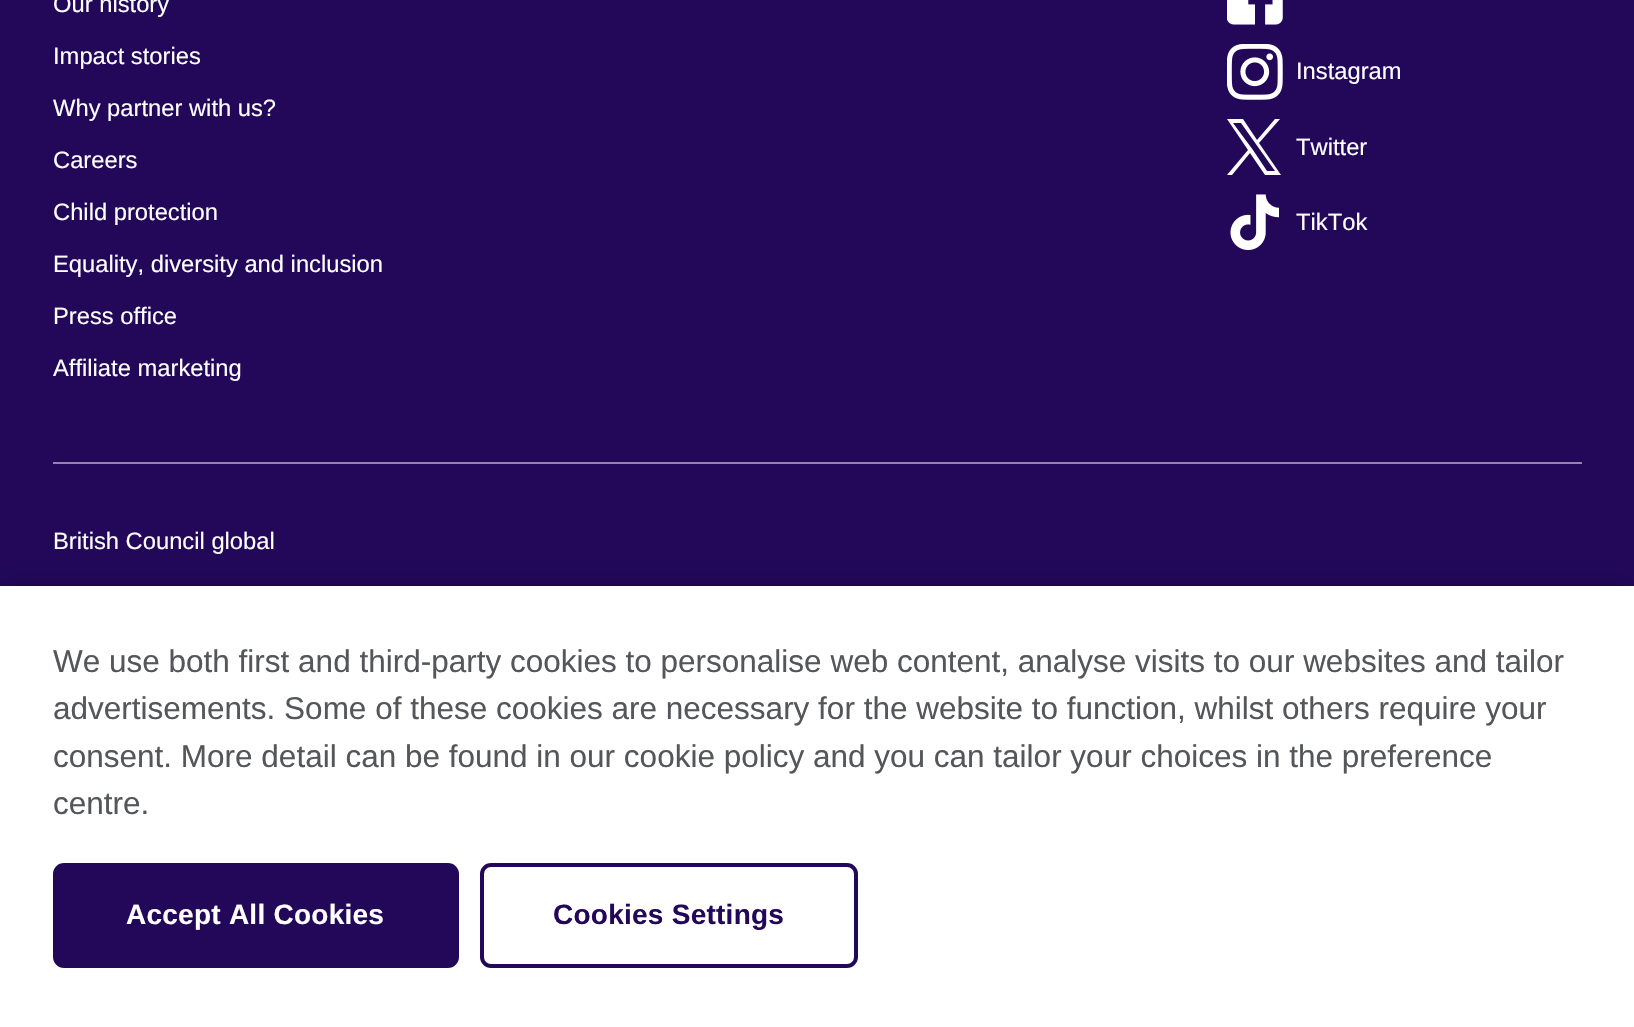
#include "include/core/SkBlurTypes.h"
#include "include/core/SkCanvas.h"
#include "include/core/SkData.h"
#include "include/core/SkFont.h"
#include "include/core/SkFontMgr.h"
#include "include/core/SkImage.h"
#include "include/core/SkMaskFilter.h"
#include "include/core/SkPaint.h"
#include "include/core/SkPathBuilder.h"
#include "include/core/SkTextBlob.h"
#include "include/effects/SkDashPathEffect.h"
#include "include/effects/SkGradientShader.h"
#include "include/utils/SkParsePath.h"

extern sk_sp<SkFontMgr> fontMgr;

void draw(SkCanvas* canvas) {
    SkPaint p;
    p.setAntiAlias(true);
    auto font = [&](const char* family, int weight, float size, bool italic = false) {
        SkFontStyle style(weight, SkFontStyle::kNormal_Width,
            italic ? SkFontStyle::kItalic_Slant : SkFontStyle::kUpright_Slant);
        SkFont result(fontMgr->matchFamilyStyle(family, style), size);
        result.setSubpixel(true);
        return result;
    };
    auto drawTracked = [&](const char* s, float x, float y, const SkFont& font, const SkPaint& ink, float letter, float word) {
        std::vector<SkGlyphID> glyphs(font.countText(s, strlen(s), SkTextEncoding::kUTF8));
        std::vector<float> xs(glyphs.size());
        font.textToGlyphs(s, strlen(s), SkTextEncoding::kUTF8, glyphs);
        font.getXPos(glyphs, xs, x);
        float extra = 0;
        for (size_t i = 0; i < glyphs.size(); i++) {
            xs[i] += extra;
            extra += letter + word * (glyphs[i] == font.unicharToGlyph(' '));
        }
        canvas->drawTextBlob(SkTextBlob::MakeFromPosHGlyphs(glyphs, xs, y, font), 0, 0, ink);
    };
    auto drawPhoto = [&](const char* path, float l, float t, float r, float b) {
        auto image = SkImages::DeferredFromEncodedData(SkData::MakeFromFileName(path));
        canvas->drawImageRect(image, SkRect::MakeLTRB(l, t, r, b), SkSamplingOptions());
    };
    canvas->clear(0xFF23085A);
    auto font1 = font("Liberation Sans", 400, 23.75f);
    p.setColor(0xFFFFFFFF);
    {
        const struct { const char* s; float x, y; } items[] = {
            {"Our history", 53, 12},
            {"Impact stories", 53, 64},
            {"Why partner with us?", 53, 116},
            {"Careers", 53, 168},
            {"Child protection", 53, 220},
            {"Equality, diversity and inclusion", 53, 272},
            {"Press office", 53, 324},
            {"Affiliate marketing", 53, 376},
        };
        for (auto [s, x, y] : items) {
            canvas->drawString(s, x, y, font1, p);
        }
    }
    drawPhoto("media/1.png", 1227, 0, 1283, 25);
    drawPhoto("media/2.png", 1227, 44, 1283, 100);
    canvas->drawString("Instagram", 1296, 79, font1, p);
    canvas->drawPath(SkPathBuilder().moveTo(1259, 143).lineTo(1280, 119).lineTo(1275, 119).lineTo(1257, 140).lineTo(1243, 119).lineTo(1227, 119).lineTo(1248, 150).lineTo(1227, 175).lineTo(1232, 175).lineTo(1250, 153).lineTo(1265, 175).lineTo(1281, 175).close().moveTo(1253, 150).lineTo(1233, 123).lineTo(1241, 123).lineTo(1275, 171).lineTo(1267, 171).close().detach(), p);
    canvas->drawString("Twitter", 1296, 155, font1, p);
    drawPhoto("media/3.png", 1230, 194, 1279, 250);
    canvas->drawString("TikTok", 1296, 230, font1, p);
    p.setColor(0xFF9184AD);
    canvas->drawRect(SkRect::MakeLTRB(53, 462, 1582, 464), p);
    p.setColor(0xFFFFFFFF);
    canvas->drawString("British Council global", 53, 549, font1, p);
    p.setColor(0x33000000);
    p.setMaskFilter(SkMaskFilter::MakeBlur(kNormal_SkBlurStyle, 16));
    canvas->drawRect(SkRect::MakeLTRB(0, 586, 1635, 1027), p);
    p.setMaskFilter(nullptr);
    p.setColor(0xFFFFFFFF);
    canvas->drawRect(SkRect::MakeLTRB(0, 586, 1634, 1027), p);
    auto font2 = font("Liberation Sans", 400, 31.5f);
    p.setColor(0xFF54565A);
    {
        const struct { const char* s; float x, y; } items[] = {
            {"We use both first and third-party cookies to personalise web content, analyse visits to our websites and tailor", 53, 672},
            {"advertisements. Some of these cookies are necessary for the website to function, whilst others require your", 53, 719},
            {"consent. More detail can be found in our cookie policy and you can tailor your choices in the preference", 53, 767},
            {"centre.", 53, 814},
        };
        for (auto [s, x, y] : items) {
            canvas->drawString(s, x, y, font2, p);
        }
    }
    p.setColor(0xFF23085A);
    canvas->drawRoundRect(SkRect::MakeLTRB(55, 865, 457, 966), 9, 9, p);
    p.setStyle(SkPaint::kStroke_Style);
    p.setStrokeWidth(4);
    canvas->drawRoundRect(SkRect::MakeLTRB(55, 865, 457, 966), 9, 9, p);
    auto font3 = font("Liberation Sans", 700, 28);
    p.setStyle(SkPaint::kFill_Style);
    p.setColor(0xFFFFFFFF);
    drawTracked("Accept All Cookies", 126, 924, font3, p, 0.25f, 0);
    p.setStyle(SkPaint::kStroke_Style);
    p.setColor(0xFF23085A);
    canvas->drawRoundRect(SkRect::MakeLTRB(482, 865, 856, 966), 9, 9, p);
    p.setStyle(SkPaint::kFill_Style);
    drawTracked("Cookies Settings", 553, 924, font3, p, 0.25f, 0);
}
